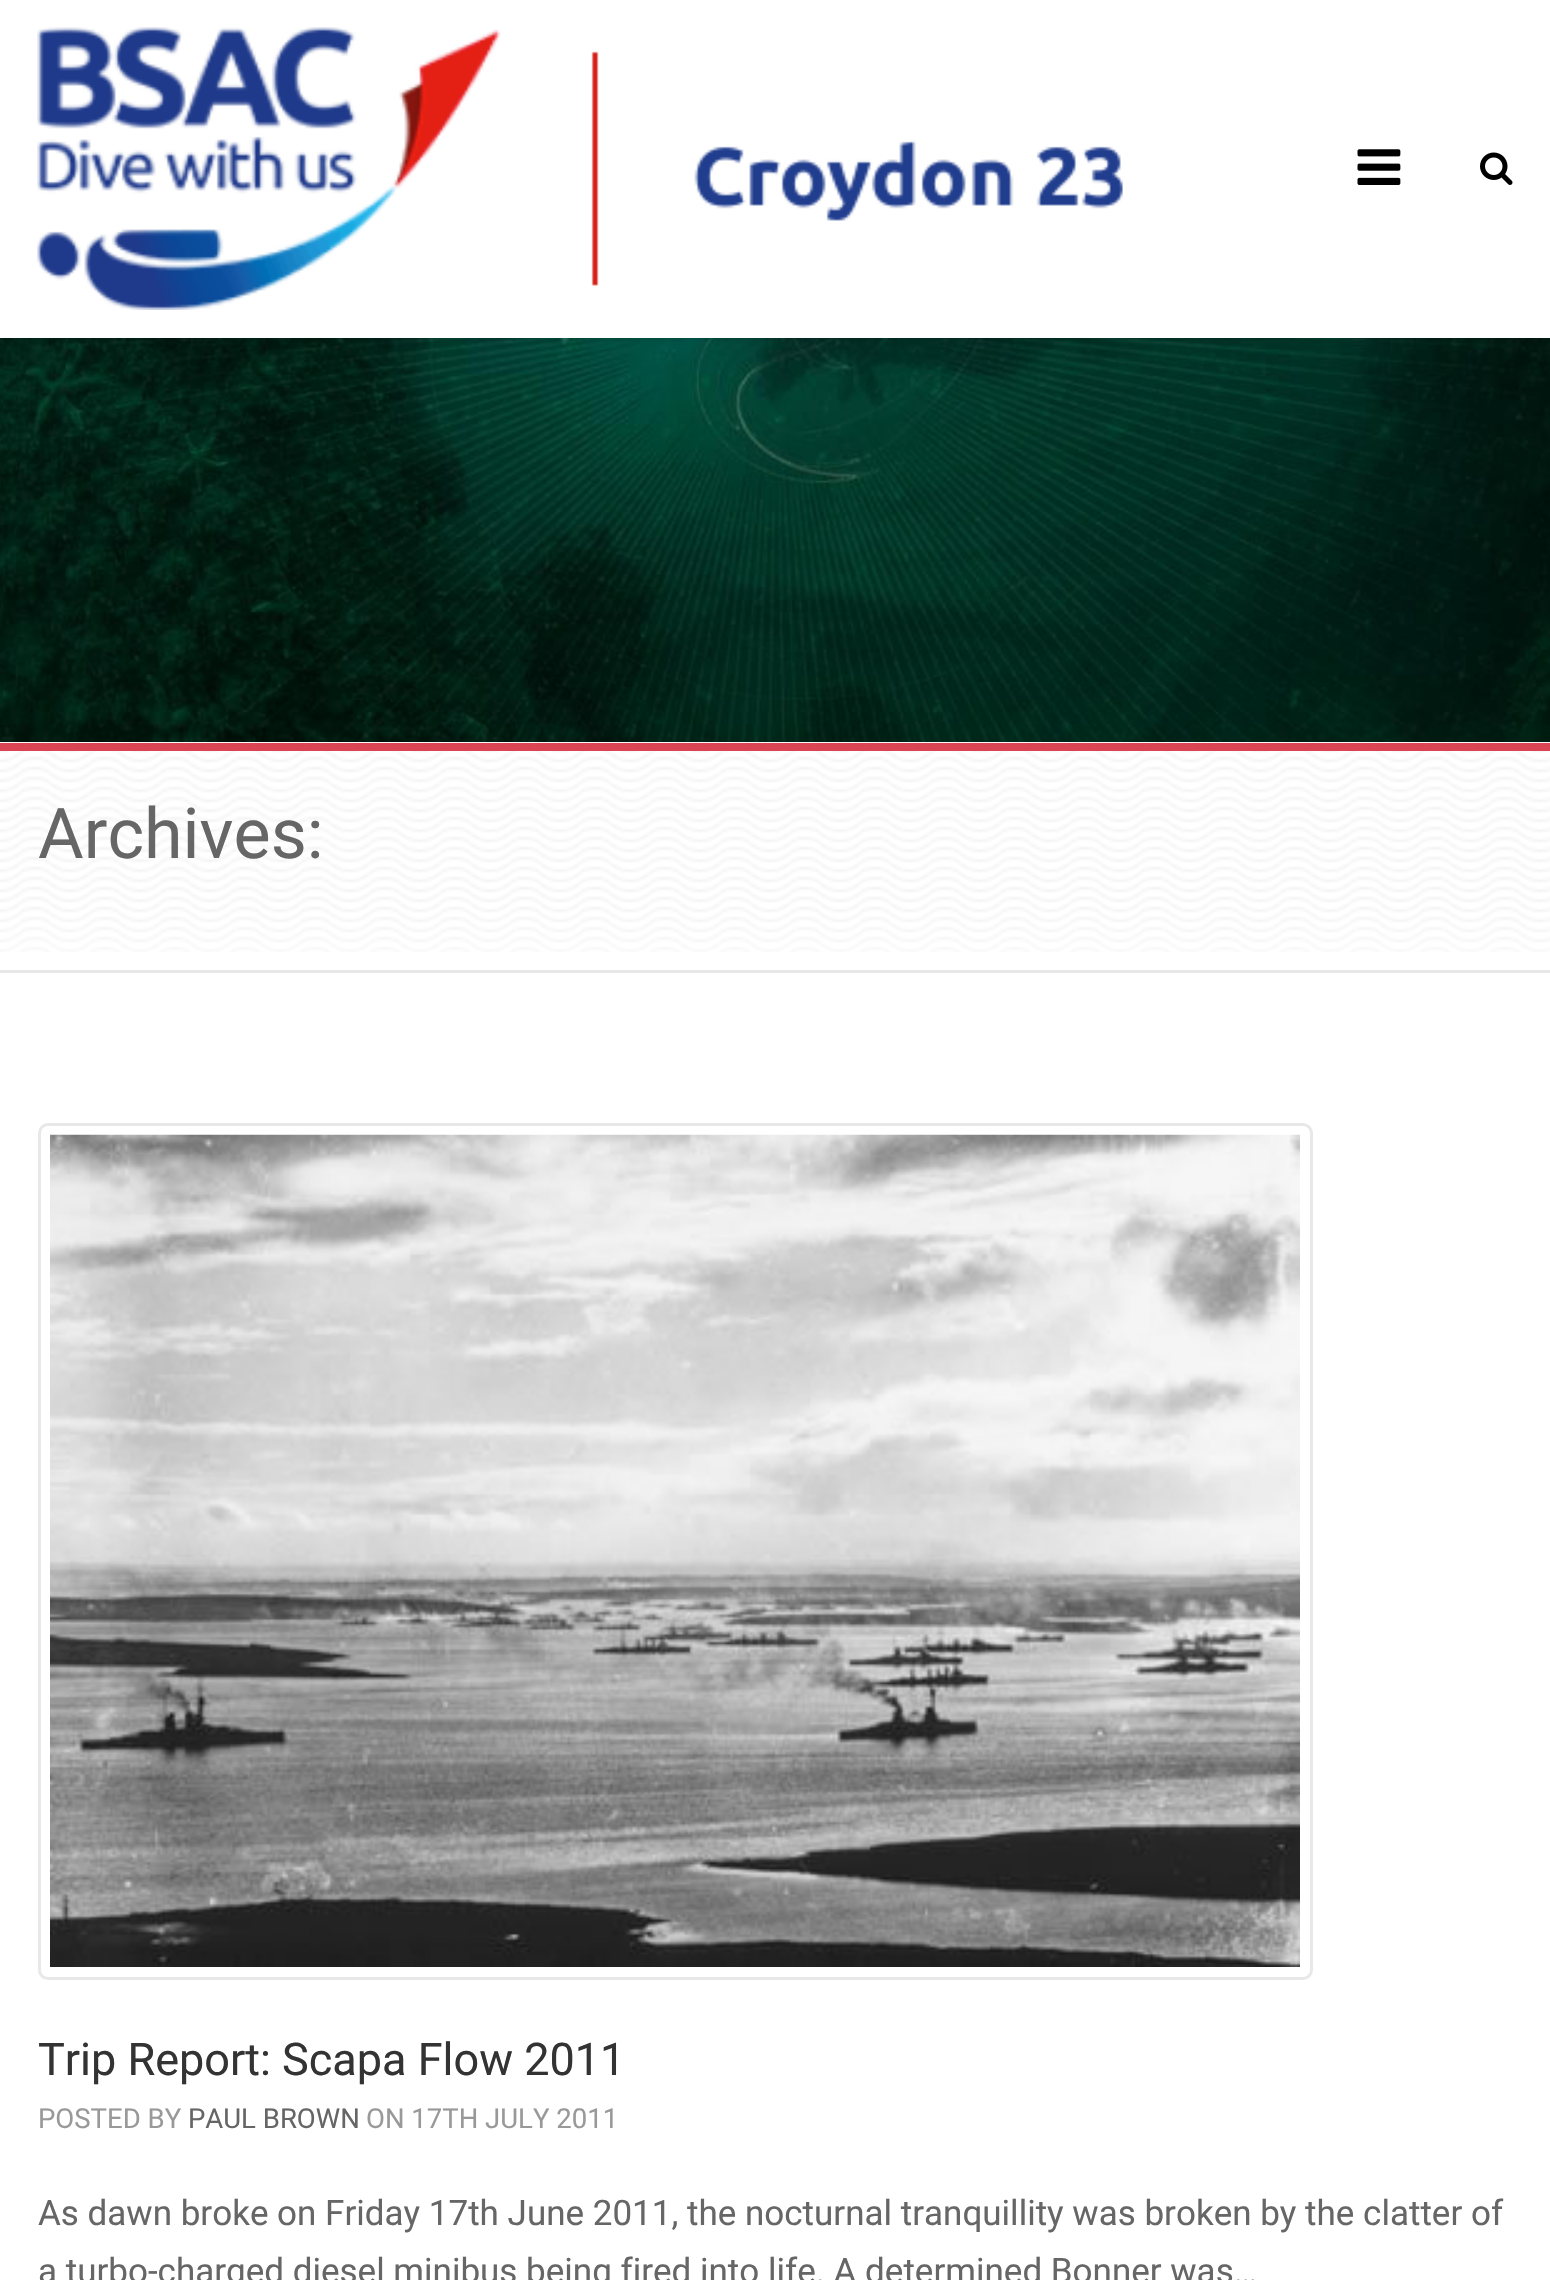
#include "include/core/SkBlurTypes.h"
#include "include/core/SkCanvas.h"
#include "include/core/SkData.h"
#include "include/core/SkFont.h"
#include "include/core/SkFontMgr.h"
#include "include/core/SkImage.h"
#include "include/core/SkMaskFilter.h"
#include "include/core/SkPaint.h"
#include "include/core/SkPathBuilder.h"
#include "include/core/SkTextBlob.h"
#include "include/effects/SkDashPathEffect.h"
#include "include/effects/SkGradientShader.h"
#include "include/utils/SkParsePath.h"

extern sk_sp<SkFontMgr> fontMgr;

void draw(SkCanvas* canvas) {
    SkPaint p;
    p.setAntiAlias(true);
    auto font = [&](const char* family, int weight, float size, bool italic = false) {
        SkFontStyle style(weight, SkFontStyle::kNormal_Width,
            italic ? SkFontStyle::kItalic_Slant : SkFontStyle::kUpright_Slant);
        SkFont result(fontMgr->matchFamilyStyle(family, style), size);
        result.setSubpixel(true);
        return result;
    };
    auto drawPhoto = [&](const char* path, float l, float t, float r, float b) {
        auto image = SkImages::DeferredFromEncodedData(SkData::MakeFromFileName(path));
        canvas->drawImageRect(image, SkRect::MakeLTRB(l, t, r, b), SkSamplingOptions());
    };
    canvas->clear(0xFFFFFFFF);
    drawPhoto("media/4.png", 0, 338, 1550, 742);
    p.setColor(0x1A000000);
    p.setMaskFilter(SkMaskFilter::MakeBlur(kNormal_SkBlurStyle, 2.5f));
    canvas->drawRect(SkRect::MakeLTRB(0, 3, 1550, 340), p);
    p.setMaskFilter(nullptr);
    p.setColor(0xFFFFFFFF);
    canvas->drawRect(SkRect::MakeLTRB(0, 0, 1550, 338), p);
    drawPhoto("media/1.png", 37, 27, 1123, 310);
    drawPhoto("media/2.png", 1357, 149, 1401, 185);
    drawPhoto("media/3.png", 1480, 152, 1513, 185);
    p.setColor(0xFFDA4453);
    canvas->drawRect(SkRect::MakeLTRB(0, 743, 1550, 751), p);
    p.setColor(0xFFF8F8F8);
    canvas->drawRect(SkRect::MakeLTRB(0, 742, 1550, 743), p);
    drawPhoto("media/5.png", 0, 751, 1550, 952);
    p.setColor(0xFFE8E8E8);
    canvas->drawRect(SkRect::MakeLTRB(0, 970, 1550, 973), p);
    auto font1 = font("Roboto", 400, 70);
    p.setColor(0xFF666666);
    canvas->drawString("Archives:", 38, 858, font1, p);
    p.setStyle(SkPaint::kStroke_Style);
    p.setStrokeWidth(3);
    p.setColor(0xFFE8E8E8);
    canvas->drawRoundRect(SkRect::MakeLTRB(39.5f, 1124.5f, 1311.5f, 1978.5f), 8.5f, 8.5f, p);
    drawPhoto("media/6.png", 50, 1134, 1300, 1967);
    auto font2 = font("Roboto", 400, 45);
    p.setStyle(SkPaint::kFill_Style);
    p.setColor(0xFF333333);
    canvas->drawString("Trip Report: Scapa Flow 2011", 38, 2075, font2, p);
    auto font3 = font("Roboto", 400, 27.5f);
    p.setColor(0xFF999999);
    canvas->drawString("POSTED BY", 38, 2128, font3, p);
    p.setColor(0xFF666666);
    canvas->drawString("PAUL BROWN", 188, 2128, font3, p);
    p.setColor(0xFF999999);
    canvas->drawString("ON 17TH JULY 2011", 366, 2128, font3, p);
    auto font4 = font("Roboto", 400, 35);
    p.setColor(0xFF666666);
    canvas->drawString("As dawn broke on Friday 17th June 2011, the nocturnal tranquillity was broken by the clatter of", 38, 2225, font4, p);
    canvas->drawString("a turbo-charged diesel minibus being fired into life. A determined Bonner was…", 38, 2283, font4, p);
}
